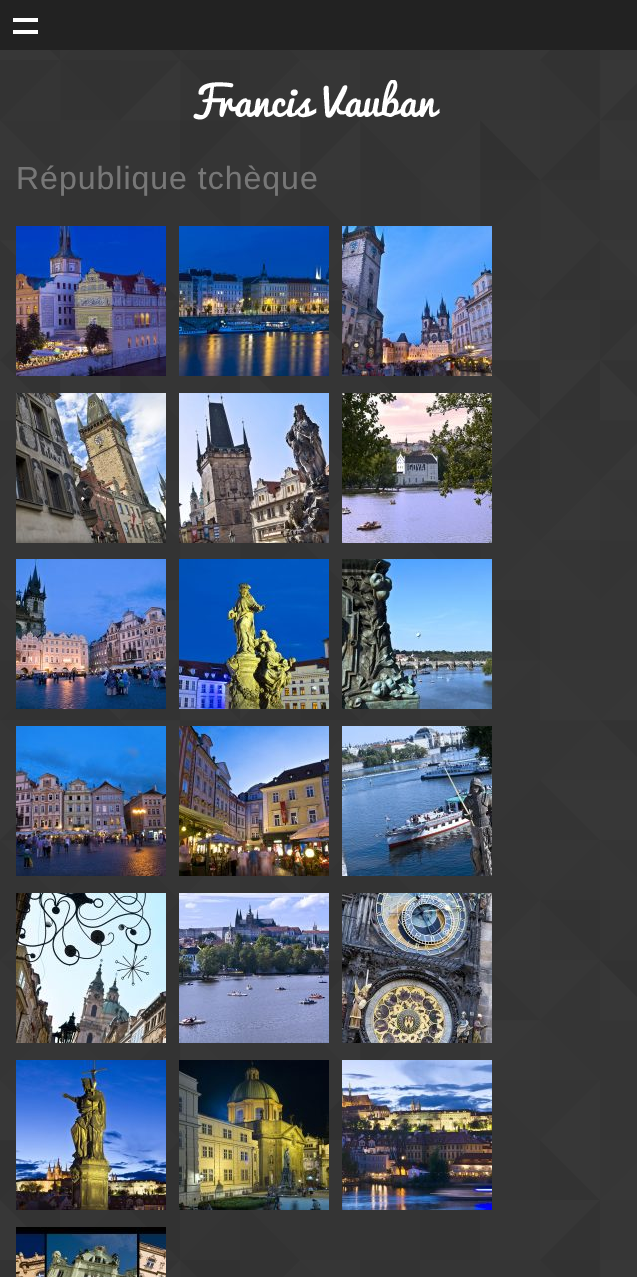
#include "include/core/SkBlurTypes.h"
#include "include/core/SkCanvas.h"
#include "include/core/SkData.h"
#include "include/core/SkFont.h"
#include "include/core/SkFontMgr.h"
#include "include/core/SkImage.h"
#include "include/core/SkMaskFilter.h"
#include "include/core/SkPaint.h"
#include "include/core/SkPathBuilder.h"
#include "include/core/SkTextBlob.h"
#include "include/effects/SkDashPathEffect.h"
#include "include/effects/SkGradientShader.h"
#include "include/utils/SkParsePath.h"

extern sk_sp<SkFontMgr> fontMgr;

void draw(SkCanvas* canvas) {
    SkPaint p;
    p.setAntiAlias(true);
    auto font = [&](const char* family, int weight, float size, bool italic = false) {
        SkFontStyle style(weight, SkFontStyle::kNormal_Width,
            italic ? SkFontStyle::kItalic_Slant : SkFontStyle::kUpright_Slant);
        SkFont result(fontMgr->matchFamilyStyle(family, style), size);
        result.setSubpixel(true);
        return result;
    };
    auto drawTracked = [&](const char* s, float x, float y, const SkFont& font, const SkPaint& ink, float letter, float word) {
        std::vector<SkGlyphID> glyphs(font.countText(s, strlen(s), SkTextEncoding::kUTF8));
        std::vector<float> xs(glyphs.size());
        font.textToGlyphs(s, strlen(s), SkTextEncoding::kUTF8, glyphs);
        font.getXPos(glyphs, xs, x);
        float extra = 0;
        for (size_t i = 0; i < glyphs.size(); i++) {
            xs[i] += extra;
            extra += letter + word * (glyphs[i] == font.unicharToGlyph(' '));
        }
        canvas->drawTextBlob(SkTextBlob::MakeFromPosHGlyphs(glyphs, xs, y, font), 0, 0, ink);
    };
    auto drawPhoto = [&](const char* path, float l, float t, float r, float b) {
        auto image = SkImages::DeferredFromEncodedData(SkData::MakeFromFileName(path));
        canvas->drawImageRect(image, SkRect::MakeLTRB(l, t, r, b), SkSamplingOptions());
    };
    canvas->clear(0xFFFFFFFF);
    drawPhoto("media/1.png", 0, 50, 637, 1277);
    {
        const struct { float l, t, r, b; SkColor color; } items[] = {
            {0, 0, 637, 50, 0xFF222222},
            {13, 18, 38, 22, 0xFFFFFFFF},
            {13, 30, 38, 34, 0xFFFFFFFF},
        };
        for (auto [l, t, r, b, color] : items) {
            p.setColor(color);
            canvas->drawRect(SkRect::MakeLTRB(l, t, r, b), p);
        }
    }
    drawPhoto("media/2.png", 193, 80, 440, 120);
    auto font1 = font("Liberation Sans", 400, 32);
    p.setColor(0xFF777777);
    drawTracked("République tchèque", 16, 189, font1, p, 1, 0);
    drawPhoto("media/3.png", 16, 226, 166, 376);
    drawPhoto("media/4.png", 179, 226, 329, 376);
    drawPhoto("media/5.png", 342, 226, 492, 376);
    drawPhoto("media/6.png", 16, 393, 166, 543);
    drawPhoto("media/7.png", 179, 393, 329, 543);
    drawPhoto("media/8.png", 342, 393, 492, 543);
    drawPhoto("media/9.png", 16, 559, 166, 709);
    drawPhoto("media/10.png", 179, 559, 329, 709);
    drawPhoto("media/11.png", 342, 559, 492, 709);
    drawPhoto("media/12.png", 16, 726, 166, 876);
    drawPhoto("media/13.png", 179, 726, 329, 876);
    drawPhoto("media/14.png", 342, 726, 492, 876);
    drawPhoto("media/15.png", 16, 893, 166, 1043);
    drawPhoto("media/16.png", 179, 893, 329, 1043);
    drawPhoto("media/17.png", 342, 893, 492, 1043);
    drawPhoto("media/18.png", 16, 1060, 166, 1210);
    drawPhoto("media/19.png", 179, 1060, 329, 1210);
    drawPhoto("media/20.png", 342, 1060, 492, 1210);
    drawPhoto("media/21.png", 16, 1227, 166, 1277);
}
